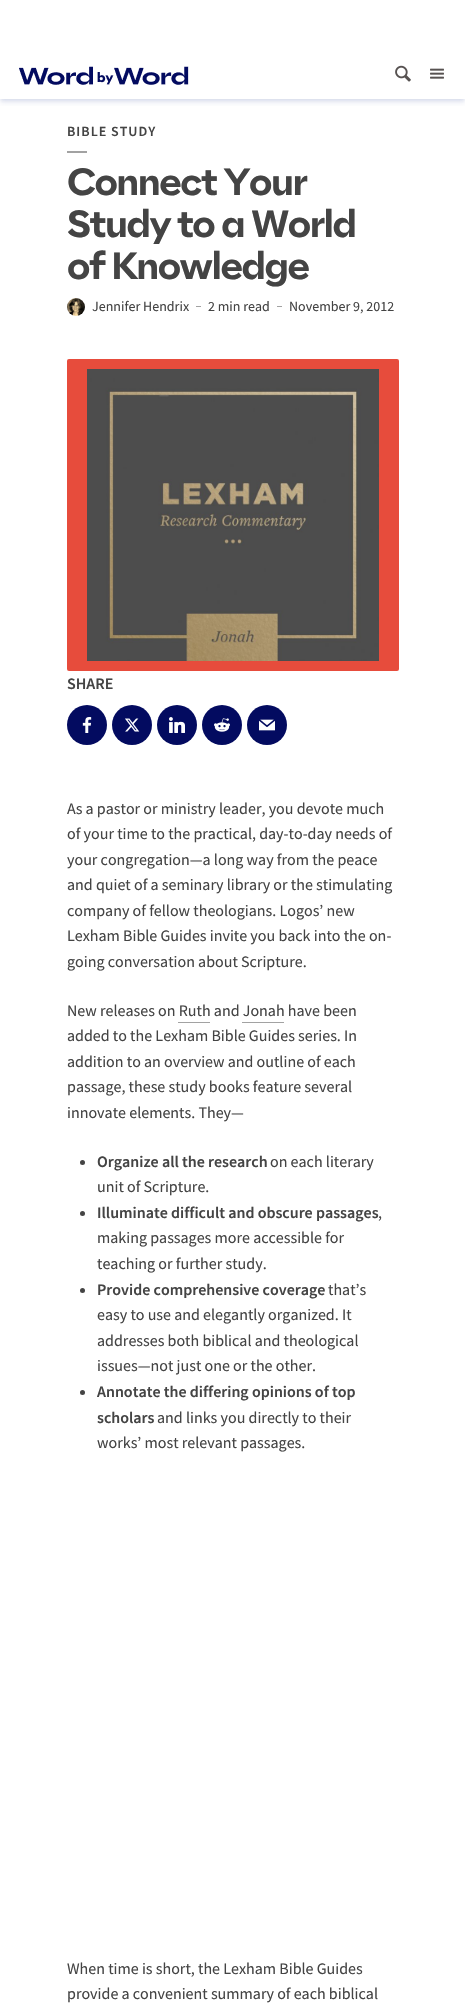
#include "include/core/SkBlurTypes.h"
#include "include/core/SkCanvas.h"
#include "include/core/SkData.h"
#include "include/core/SkFont.h"
#include "include/core/SkFontMgr.h"
#include "include/core/SkImage.h"
#include "include/core/SkMaskFilter.h"
#include "include/core/SkPaint.h"
#include "include/core/SkPathBuilder.h"
#include "include/core/SkTextBlob.h"
#include "include/effects/SkDashPathEffect.h"
#include "include/effects/SkGradientShader.h"
#include "include/utils/SkParsePath.h"

extern sk_sp<SkFontMgr> fontMgr;

void draw(SkCanvas* canvas) {
    SkPaint p;
    p.setAntiAlias(true);
    auto font = [&](const char* family, int weight, float size, bool italic = false) {
        SkFontStyle style(weight, SkFontStyle::kNormal_Width,
            italic ? SkFontStyle::kItalic_Slant : SkFontStyle::kUpright_Slant);
        SkFont result(fontMgr->matchFamilyStyle(family, style), size);
        result.setSubpixel(true);
        return result;
    };
    auto drawTracked = [&](const char* s, float x, float y, const SkFont& font, const SkPaint& ink, float letter, float word) {
        std::vector<SkGlyphID> glyphs(font.countText(s, strlen(s), SkTextEncoding::kUTF8));
        std::vector<float> xs(glyphs.size());
        font.textToGlyphs(s, strlen(s), SkTextEncoding::kUTF8, glyphs);
        font.getXPos(glyphs, xs, x);
        float extra = 0;
        for (size_t i = 0; i < glyphs.size(); i++) {
            xs[i] += extra;
            extra += letter + word * (glyphs[i] == font.unicharToGlyph(' '));
        }
        canvas->drawTextBlob(SkTextBlob::MakeFromPosHGlyphs(glyphs, xs, y, font), 0, 0, ink);
    };
    auto drawPhoto = [&](const char* path, float l, float t, float r, float b) {
        auto image = SkImages::DeferredFromEncodedData(SkData::MakeFromFileName(path));
        canvas->drawImageRect(image, SkRect::MakeLTRB(l, t, r, b), SkSamplingOptions());
    };
    canvas->clear(0xFFFFFFFF);
    canvas->save();
    canvas->clipRect(SkRect::MakeLTRB(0, 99, 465, 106));
    p.setColor(0x246E83B7);
    p.setMaskFilter(SkMaskFilter::MakeBlur(kNormal_SkBlurStyle, 2.5f));
    canvas->drawRect(SkRect::MakeLTRB(0, 55, 465, 103), p);
    p.setMaskFilter(nullptr);
    canvas->restore();
    canvas->save();
    canvas->clipRect(SkRect::MakeLTRB(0, 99, 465, 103));
    p.setColor(0x336E83B7);
    p.setMaskFilter(SkMaskFilter::MakeBlur(kNormal_SkBlurStyle, 2));
    canvas->drawRect(SkRect::MakeLTRB(1, 54, 464, 100), p);
    p.setMaskFilter(nullptr);
    canvas->restore();
    drawPhoto("media/1.png", 19, 66, 189, 85);
    drawPhoto("media/2.png", 395, 65, 411, 82);
    drawPhoto("media/3.png", 430, 68, 444, 79);
    auto font1 = font("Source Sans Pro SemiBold", 600, 14);
    p.setColor(0xFF444444);
    drawTracked("BIBLE STUDY", 67, 136, font1, p, 1, 0);
    p.setColor(0xFFA2A2A2);
    canvas->drawRect(SkRect::MakeLTRB(67, 151, 87, 153), p);
    auto font2 = font("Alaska", 600, 36);
    p.setColor(0xFF444444);
    {
        const struct { const char* s; float x, y; } items[] = {
            {"Connect Your", 67, 195},
            {"Study to a World", 67, 237},
            {"of Knowledge", 67, 279},
        };
        for (auto [s, x, y] : items) {
            drawTracked(s, x, y, font2, p, -1.5f, 0);
        }
    }
    drawPhoto("media/4.png", 67, 298, 85, 316);
    auto font3 = font("Source Sans Pro", 400, 14);
    canvas->drawString("Jennifer Hendrix", 92, 311, font3, p);
    p.setColor(0xFFA2A2A2);
    canvas->drawRect(SkRect::MakeLTRB(196, 306, 201, 307), p);
    p.setColor(0xFF444444);
    canvas->drawString("2 min read", 208, 311, font3, p);
    p.setColor(0xFFA2A2A2);
    canvas->drawRect(SkRect::MakeLTRB(277, 306, 282, 307), p);
    p.setColor(0xFF444444);
    canvas->drawString("November 9, 2012", 289, 311, font3, p);
    p.setColor(0xFFE74C3C);
    canvas->drawRoundRect(SkRect::MakeLTRB(67, 359, 399, 671), 2, 2, p);
    drawPhoto("media/5.png", 87, 369, 379, 661);
    auto font4 = font("Source Sans Pro SemiBold", 600, 16);
    p.setColor(0xFF444444);
    canvas->drawString("SHARE", 67, 689, font4, p);
    p.setColor(0xFF030B60);
    canvas->drawCircle(87, 725, 20, p);
    drawPhoto("media/6.png", 82, 717, 92, 733);
    canvas->drawCircle(132, 725, 20, p);
    drawPhoto("media/7.png", 125, 718, 140, 732);
    canvas->drawCircle(177, 725, 20, p);
    drawPhoto("media/8.png", 169, 717, 185, 733);
    canvas->drawCircle(222, 725, 20, p);
    drawPhoto("media/9.png", 214, 718, 230, 732);
    canvas->drawCircle(267, 725, 20, p);
    drawPhoto("media/10.png", 259, 719, 275, 731);
    auto font5 = font("Source Sans Pro", 400, 16);
    p.setColor(0xFF444444);
    {
        const struct { const char* s; float x, y; } items[] = {
            {"As a pastor or ministry leader, you devote much", 67, 814},
            {"of your time to the practical, day-to-day needs of", 67, 839},
            {"your congregation—a long way from the peace", 67, 865},
            {"and quiet of a seminary library or the stimulating", 67, 890},
            {"company of fellow theologians. Logos’ new", 67, 916},
            {"Lexham Bible Guides invite you back into the on-", 67, 941},
            {"going conversation about Scripture.", 67, 967},
            {"New releases on Ruth and Jonah have been", 67, 1016},
        };
        for (auto [s, x, y] : items) {
            canvas->drawString(s, x, y, font5, p);
        }
    }
    p.setColor(0xFFA2A2A2);
    canvas->drawRect(SkRect::MakeLTRB(178, 1022, 210, 1023), p);
    canvas->drawRect(SkRect::MakeLTRB(242, 1022, 284, 1023), p);
    p.setColor(0xFF444444);
    {
        const struct { const char* s; float x, y; } items[] = {
            {"added to the Lexham Bible Guides series. In", 67, 1041},
            {"addition to an overview and outline of each", 67, 1067},
            {"passage, these study books feature several", 67, 1092},
            {"innovate elements. They—", 67, 1118},
        };
        for (auto [s, x, y] : items) {
            canvas->drawString(s, x, y, font5, p);
        }
    }
    canvas->drawCircle(82.5f, 1162.5f, 2.5f, p);
    canvas->drawString("Organize all the research", 97, 1167, font4, p);
    canvas->drawString("on each literary", 270, 1167, font5, p);
    canvas->drawString("unit of Scripture.", 97, 1192, font5, p);
    canvas->drawCircle(82.5f, 1213.5f, 2.5f, p);
    canvas->drawString("Illuminate difficult and obscure passages", 97, 1218, font4, p);
    {
        const struct { const char* s; float x, y; } items[] = {
            {",", 378, 1218},
            {"making passages more accessible for", 97, 1243},
            {"teaching or further study.", 97, 1269},
        };
        for (auto [s, x, y] : items) {
            canvas->drawString(s, x, y, font5, p);
        }
    }
    canvas->drawCircle(82.5f, 1290.5f, 2.5f, p);
    canvas->drawString("Provide comprehensive coverage", 97, 1295, font4, p);
    {
        const struct { const char* s; float x, y; } items[] = {
            {"that’s", 328, 1295},
            {"easy to use and elegantly organized. It", 97, 1320},
            {"addresses both biblical and theological", 97, 1346},
            {"issues—not just one or the other.", 97, 1371},
        };
        for (auto [s, x, y] : items) {
            canvas->drawString(s, x, y, font5, p);
        }
    }
    canvas->drawCircle(82.5f, 1392.5f, 2.5f, p);
    canvas->drawString("Annotate the differing opinions of top", 97, 1397, font4, p);
    canvas->drawString("scholars", 97, 1423, font4, p);
    {
        const struct { const char* s; float x, y; } items[] = {
            {"and links you directly to their", 157, 1423},
            {"works’ most relevant passages.", 97, 1448},
            {"When time is short, the Lexham Bible Guides", 67, 1974},
            {"provide a convenient summary of each biblical", 67, 1999},
        };
        for (auto [s, x, y] : items) {
            canvas->drawString(s, x, y, font5, p);
        }
    }
}
